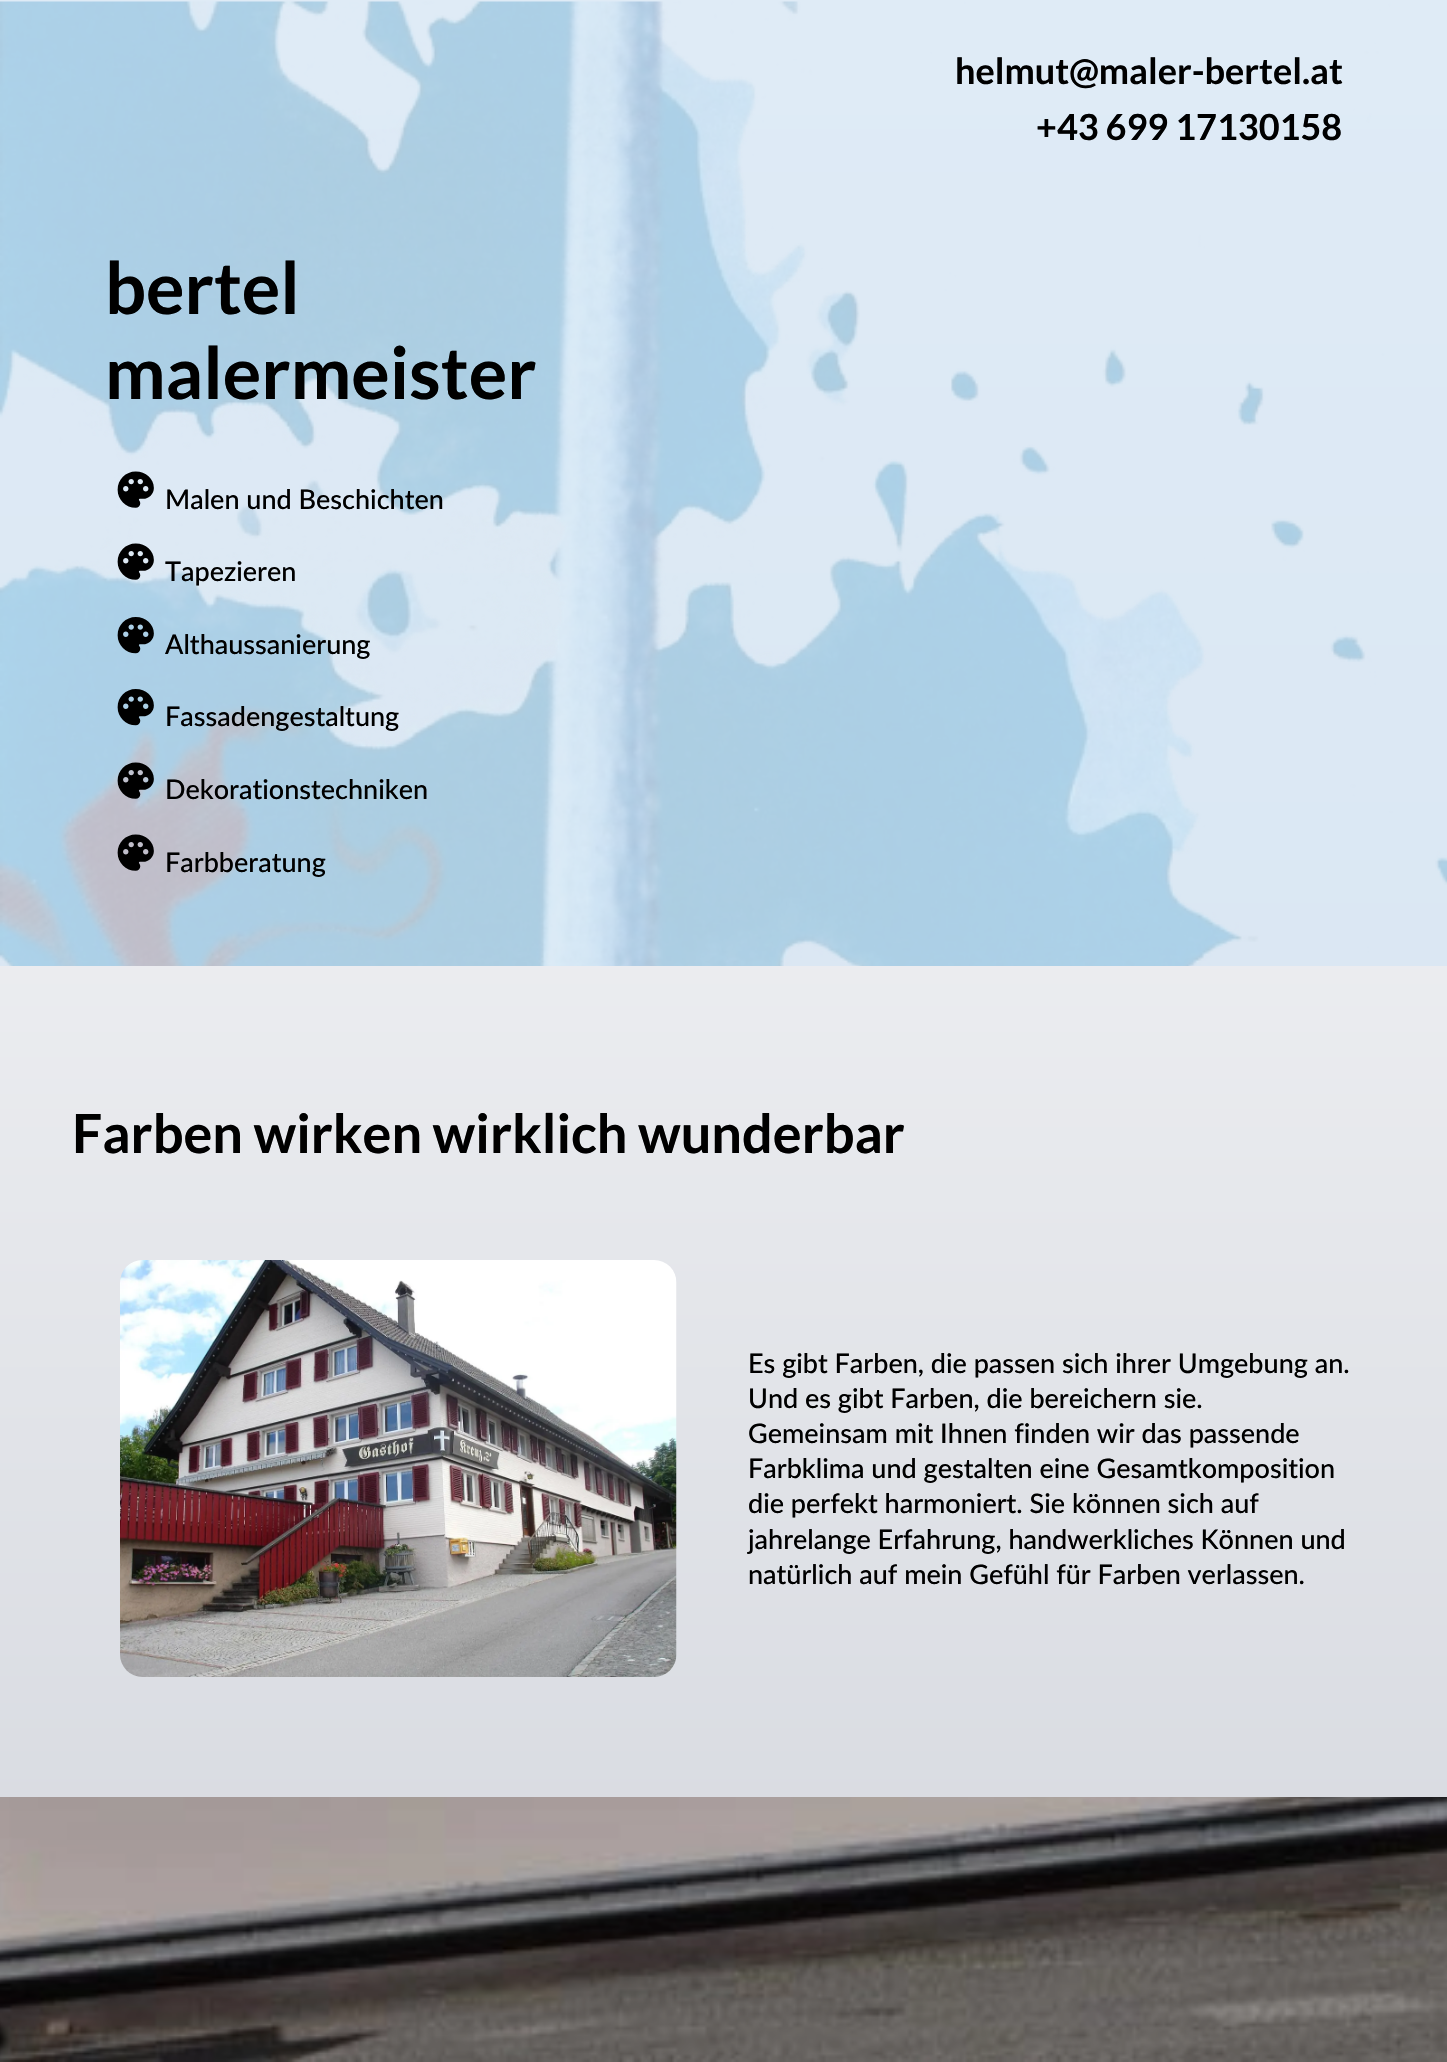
#include "include/core/SkBlurTypes.h"
#include "include/core/SkCanvas.h"
#include "include/core/SkData.h"
#include "include/core/SkFont.h"
#include "include/core/SkFontMgr.h"
#include "include/core/SkImage.h"
#include "include/core/SkMaskFilter.h"
#include "include/core/SkPaint.h"
#include "include/core/SkPathBuilder.h"
#include "include/core/SkTextBlob.h"
#include "include/effects/SkDashPathEffect.h"
#include "include/effects/SkGradientShader.h"
#include "include/utils/SkParsePath.h"

extern sk_sp<SkFontMgr> fontMgr;

void draw(SkCanvas* canvas) {
    SkPaint p;
    p.setAntiAlias(true);
    auto font = [&](const char* family, int weight, float size, bool italic = false) {
        SkFontStyle style(weight, SkFontStyle::kNormal_Width,
            italic ? SkFontStyle::kItalic_Slant : SkFontStyle::kUpright_Slant);
        SkFont result(fontMgr->matchFamilyStyle(family, style), size);
        result.setSubpixel(true);
        return result;
    };
    auto drawPhoto = [&](const char* path, float l, float t, float r, float b) {
        auto image = SkImages::DeferredFromEncodedData(SkData::MakeFromFileName(path));
        canvas->drawImageRect(image, SkRect::MakeLTRB(l, t, r, b), SkSamplingOptions());
    };
    canvas->clear(0xFFFFFFFF);
    {
        const SkColor colors[] = {0xFFFFFFFF, 0xFFD4D7DE};
        const float stops[] = {0, 1};
        const SkPoint ends[] = {{724, 0}, {724, 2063}};
        p.setShader(SkGradientShader::MakeLinear(ends, colors, stops, 2, SkTileMode::kClamp));
        p.setAlpha(255);
    }
    canvas->drawRect(SkRect::MakeLTRB(0, 966, 1447, 1797), p);
    {
        const SkColor colors[] = {0xFFDFEBF6, 0xFFD6E3F0};
        const float stops[] = {0, 1};
        const SkPoint ends[] = {{724, 0}, {724, 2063}};
        p.setShader(SkGradientShader::MakeLinear(ends, colors, stops, 2, SkTileMode::kClamp));
        p.setAlpha(255);
    }
    canvas->drawRect(SkRect::MakeLTRB(0, 0, 1447, 966), p);
    drawPhoto("media/1.png", 0, 1, 1447, 966);
    auto font1 = font("Lato", 700, 36);
    p.setShader(nullptr);
    p.setColor(0xFF000000);
    canvas->drawString("helmut@maler-bertel.at", 955, 84, font1, p);
    canvas->drawString("+43 699 17130158", 1036, 140, font1, p);
    auto font2 = font("Lato", 700, 72);
    canvas->drawString("bertel", 105, 314, font2, p);
    canvas->drawString("malermeister", 105, 399, font2, p);
    drawPhoto("media/2.png", 117, 471, 154, 508);
    auto font3 = font("Lato", 500, 27);
    canvas->drawString("Malen und Beschichten", 165, 509, font3, p);
    drawPhoto("media/3.png", 117, 543, 154, 580);
    canvas->drawString("Tapezieren", 165, 581, font3, p);
    drawPhoto("media/4.png", 117, 617, 154, 654);
    canvas->drawString("Althaussanierung", 165, 654, font3, p);
    drawPhoto("media/5.png", 117, 689, 154, 726);
    canvas->drawString("Fassadengestaltung", 165, 726, font3, p);
    drawPhoto("media/6.png", 117, 762, 154, 799);
    canvas->drawString("Dekorationstechniken", 165, 799, font3, p);
    drawPhoto("media/7.png", 117, 834, 154, 871);
    canvas->drawString("Farbberatung", 165, 872, font3, p);
    auto font4 = font("Lato", 700, 54);
    canvas->drawString("Farben wirken wirklich wunderbar", 72, 1153, font4, p);
    drawPhoto("media/8.png", 120, 1260, 677, 1677);
    {
        const struct { const char* s; float x, y; } items[] = {
            {"Es gibt Farben, die passen sich ihrer Umgebung an.", 748, 1373},
            {"Und es gibt Farben, die bereichern sie.", 748, 1408},
            {"Gemeinsam mit Ihnen finden wir das passende", 748, 1443},
            {"Farbklima und gestalten eine Gesamtkomposition", 748, 1478},
            {"die perfekt harmoniert. Sie können sich auf", 748, 1513},
            {"jahrelange Erfahrung, handwerkliches Können und", 748, 1549},
            {"natürlich auf mein Gefühl für Farben verlassen.", 748, 1584},
        };
        for (auto [s, x, y] : items) {
            canvas->drawString(s, x, y, font3, p);
        }
    }
    drawPhoto("media/9.png", 0, 1797, 1447, 2062);
}
